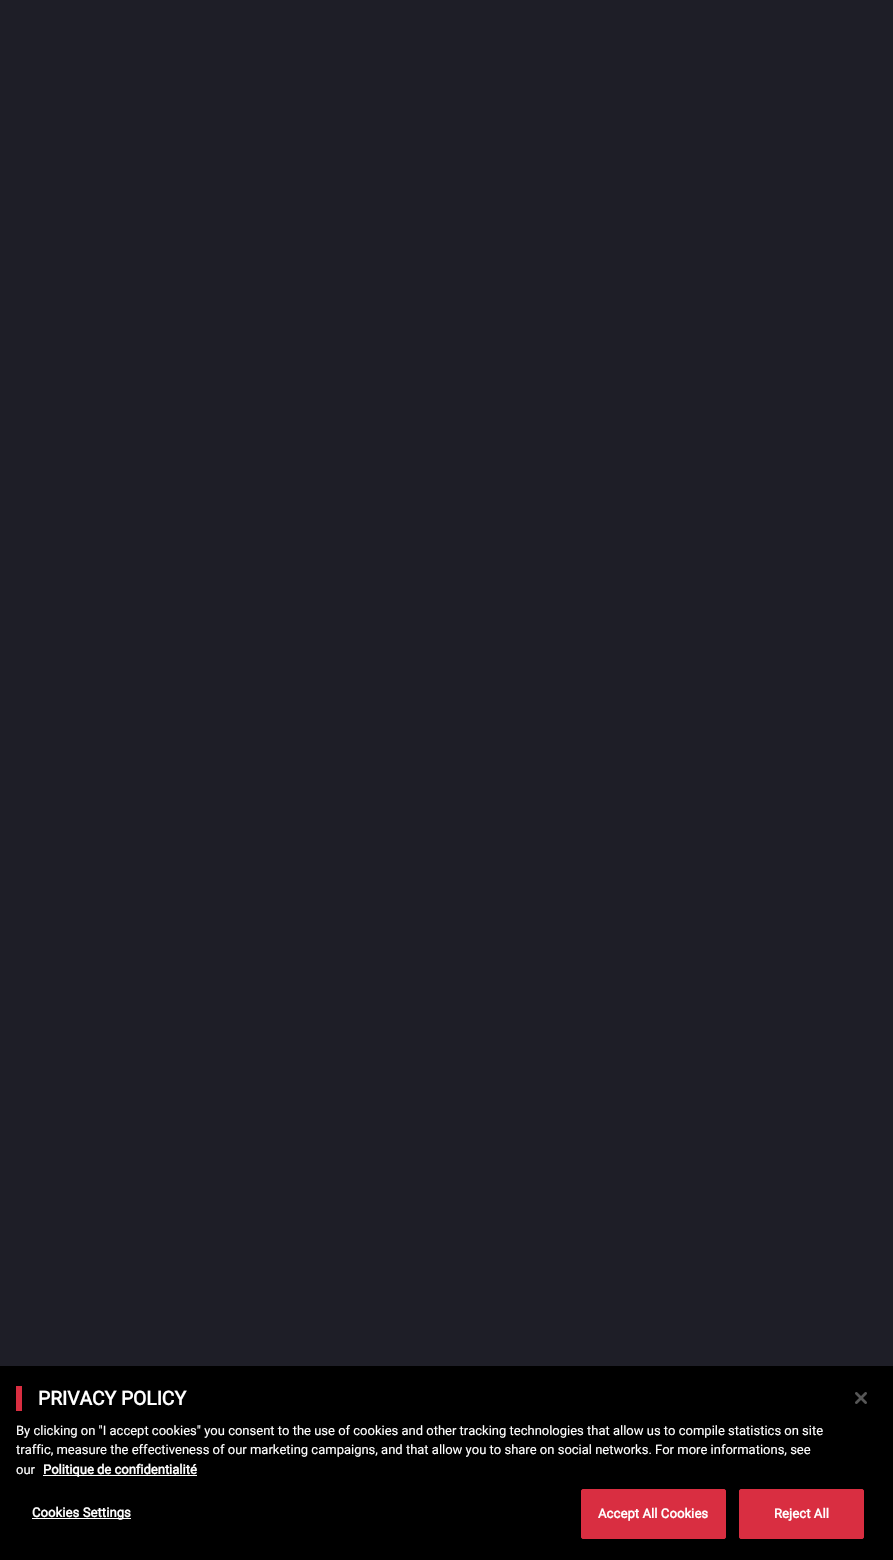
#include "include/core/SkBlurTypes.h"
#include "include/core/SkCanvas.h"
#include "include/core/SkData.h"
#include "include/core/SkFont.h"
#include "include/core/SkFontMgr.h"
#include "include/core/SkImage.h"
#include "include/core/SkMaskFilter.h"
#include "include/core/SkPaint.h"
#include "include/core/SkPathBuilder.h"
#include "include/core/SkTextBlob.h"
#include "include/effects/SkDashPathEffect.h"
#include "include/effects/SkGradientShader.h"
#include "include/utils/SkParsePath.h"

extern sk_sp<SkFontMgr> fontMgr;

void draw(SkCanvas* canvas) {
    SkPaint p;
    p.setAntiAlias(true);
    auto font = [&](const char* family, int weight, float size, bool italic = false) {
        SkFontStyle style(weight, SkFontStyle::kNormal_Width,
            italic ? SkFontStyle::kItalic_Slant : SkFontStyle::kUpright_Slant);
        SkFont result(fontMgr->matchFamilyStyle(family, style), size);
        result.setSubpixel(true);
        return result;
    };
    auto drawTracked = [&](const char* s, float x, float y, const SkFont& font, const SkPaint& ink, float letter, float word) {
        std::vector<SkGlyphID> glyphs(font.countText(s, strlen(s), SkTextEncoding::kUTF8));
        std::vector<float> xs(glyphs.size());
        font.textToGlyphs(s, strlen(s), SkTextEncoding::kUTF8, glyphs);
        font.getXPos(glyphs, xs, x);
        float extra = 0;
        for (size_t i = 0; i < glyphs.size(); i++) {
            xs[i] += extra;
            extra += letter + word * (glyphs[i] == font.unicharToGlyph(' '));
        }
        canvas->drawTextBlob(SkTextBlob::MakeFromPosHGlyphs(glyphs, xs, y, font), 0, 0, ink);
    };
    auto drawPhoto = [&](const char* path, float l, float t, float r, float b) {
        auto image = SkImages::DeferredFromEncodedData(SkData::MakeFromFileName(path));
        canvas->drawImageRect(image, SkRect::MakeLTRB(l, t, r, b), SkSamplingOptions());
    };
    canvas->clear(0xFF1E1E27);
    p.setColor(0xFF000000);
    canvas->drawRect(SkRect::MakeLTRB(0, 1366, 893, 1560), p);
    p.setColor(0xFFD92E41);
    canvas->drawRect(SkRect::MakeLTRB(16, 1386, 22, 1411), p);
    auto font1 = font("Roboto", 700, 19.25f);
    p.setColor(0xFFFFFFFF);
    canvas->drawString("PRIVACY POLICY", 38, 1405, font1, p);
    auto font2 = font("Roboto", 400, 13);
    {
        const struct { const char* s; float x, y; } items[] = {
            {"By clicking on \"I accept cookies\" you consent to the use of cookies and other tracking technologies that allow us to compile statistics on site", 16, 1435},
            {"traffic, measure the effectiveness of our marketing campaigns, and that allow you to share on social networks. For more informations, see", 16, 1454},
            {"our", 16, 1474},
        };
        for (auto [s, x, y] : items) {
            canvas->drawString(s, x, y, font2, p);
        }
    }
    canvas->drawRect(SkRect::MakeLTRB(43, 1475, 197, 1476), p);
    auto font3 = font("Roboto", 700, 13);
    canvas->drawString("Politique de confidentialité", 43, 1474, font3, p);
    canvas->drawRect(SkRect::MakeLTRB(32, 1518, 131, 1519), p);
    drawTracked("Cookies Settings", 32, 1517, font3, p, 0.1f, 0);
    p.setColor(0xFFD92E41);
    canvas->drawRoundRect(SkRect::MakeLTRB(581.5f, 1489.5f, 725.5f, 1538.5f), 1.5f, 1.5f, p);
    p.setStyle(SkPaint::kStroke_Style);
    p.setStrokeWidth(1);
    canvas->drawRoundRect(SkRect::MakeLTRB(581.5f, 1489.5f, 725.5f, 1538.5f), 1.5f, 1.5f, p);
    p.setStyle(SkPaint::kFill_Style);
    p.setColor(0xFFFFFFFF);
    drawTracked("Accept All Cookies", 598, 1518, font3, p, 0.1f, 0);
    p.setColor(0xFFD92E41);
    canvas->drawRoundRect(SkRect::MakeLTRB(739.5f, 1489.5f, 863.5f, 1538.5f), 1.5f, 1.5f, p);
    p.setStyle(SkPaint::kStroke_Style);
    canvas->drawRoundRect(SkRect::MakeLTRB(739.5f, 1489.5f, 863.5f, 1538.5f), 1.5f, 1.5f, p);
    p.setStyle(SkPaint::kFill_Style);
    p.setColor(0xFFFFFFFF);
    drawTracked("Reject All", 774, 1518, font3, p, 0.1f, 0);
    drawPhoto("media/1.png", 855, 1392, 867, 1404);
}
